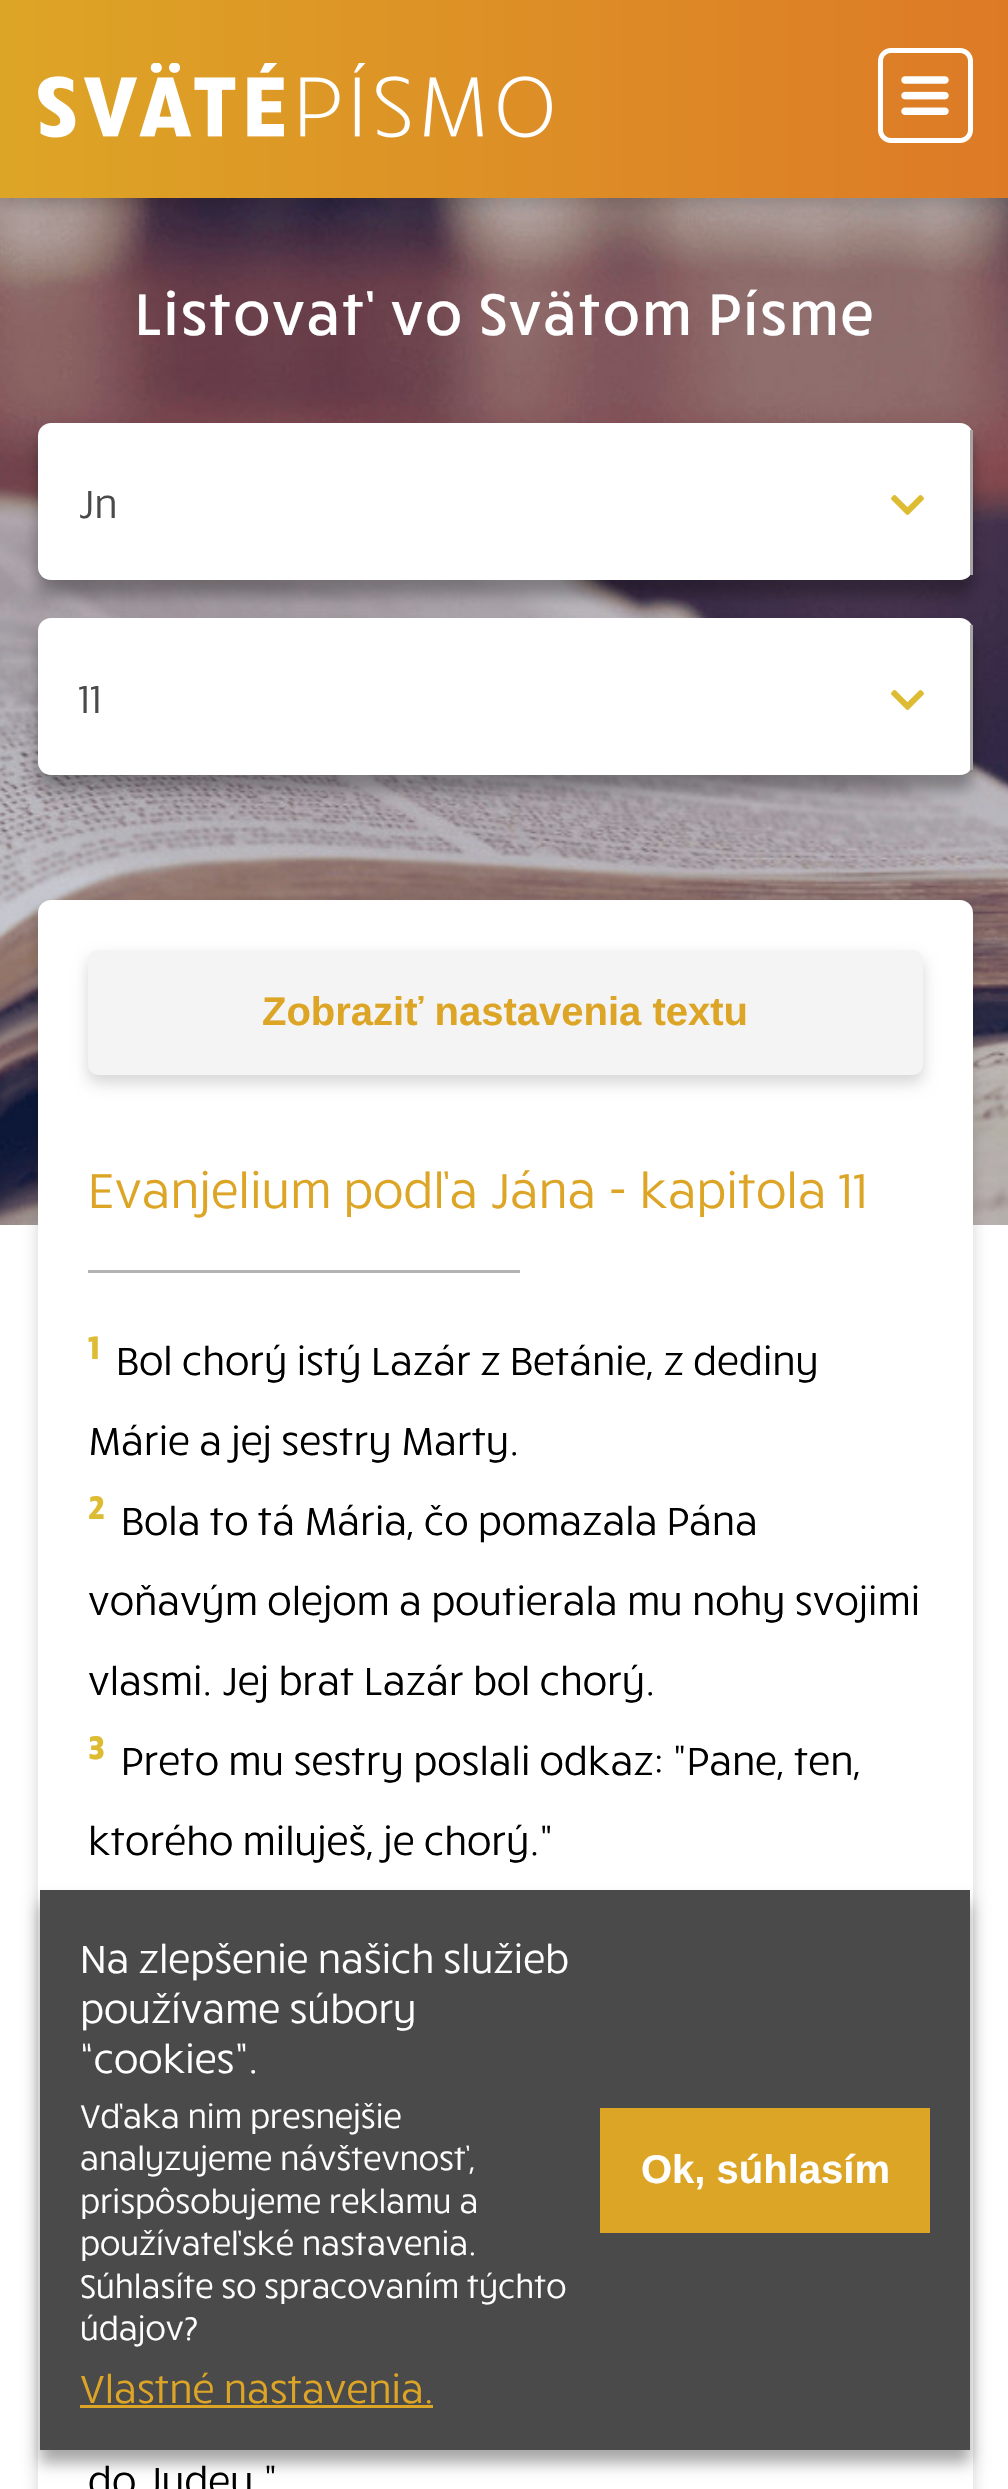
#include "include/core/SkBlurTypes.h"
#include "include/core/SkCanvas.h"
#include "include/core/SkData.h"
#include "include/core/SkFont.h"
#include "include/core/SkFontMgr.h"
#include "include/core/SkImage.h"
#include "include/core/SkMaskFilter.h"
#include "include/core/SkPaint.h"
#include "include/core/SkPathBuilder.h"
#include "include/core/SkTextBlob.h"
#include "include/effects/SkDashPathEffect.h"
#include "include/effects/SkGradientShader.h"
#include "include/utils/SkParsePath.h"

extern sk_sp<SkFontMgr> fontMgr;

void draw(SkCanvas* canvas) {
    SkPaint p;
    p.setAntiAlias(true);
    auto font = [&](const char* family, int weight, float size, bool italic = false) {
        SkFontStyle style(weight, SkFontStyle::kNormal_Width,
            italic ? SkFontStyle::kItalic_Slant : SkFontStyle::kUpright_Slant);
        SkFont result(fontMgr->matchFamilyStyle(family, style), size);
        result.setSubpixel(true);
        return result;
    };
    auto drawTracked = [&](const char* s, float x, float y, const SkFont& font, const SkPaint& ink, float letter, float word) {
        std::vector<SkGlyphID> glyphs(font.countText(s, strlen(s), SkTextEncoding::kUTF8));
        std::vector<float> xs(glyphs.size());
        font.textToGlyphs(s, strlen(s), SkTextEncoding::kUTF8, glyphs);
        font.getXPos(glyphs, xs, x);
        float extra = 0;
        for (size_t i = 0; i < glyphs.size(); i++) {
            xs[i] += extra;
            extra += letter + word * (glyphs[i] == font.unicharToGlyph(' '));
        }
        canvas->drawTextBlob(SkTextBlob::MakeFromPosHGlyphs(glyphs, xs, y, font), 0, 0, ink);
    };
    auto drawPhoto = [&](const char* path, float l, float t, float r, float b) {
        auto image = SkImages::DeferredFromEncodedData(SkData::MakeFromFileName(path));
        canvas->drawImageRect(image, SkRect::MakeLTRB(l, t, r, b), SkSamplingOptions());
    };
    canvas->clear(0xFFFFFFFF);
    drawPhoto("media/3.png", 0, 198, 1008, 1225);
    p.setColor(0x29000000);
    p.setMaskFilter(SkMaskFilter::MakeBlur(kNormal_SkBlurStyle, 7.5f));
    canvas->drawRect(SkRect::MakeLTRB(0, 8, 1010, 205), p);
    p.setMaskFilter(nullptr);
    {
        const SkColor colors[] = {0xFFDDA526, 0xFFDD7A26};
        const float stops[] = {0, 1};
        const SkPoint ends[] = {{0, 99}, {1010, 99}};
        p.setShader(SkGradientShader::MakeLinear(ends, colors, stops, 2, SkTileMode::kClamp));
        p.setAlpha(255);
    }
    canvas->drawRect(SkRect::MakeLTRB(0, 0, 1008, 198), p);
    drawPhoto("media/1.png", 38, 63, 552, 138);
    drawPhoto("media/2.png", 878, 48, 973, 143);
    auto font1 = font("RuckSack", 500, 60);
    p.setShader(nullptr);
    p.setColor(0xFFFFFFFF);
    drawTracked("Listovať vo Svätom Písme", 134, 335, font1, p, 1.65f, 0);
    p.setColor(0x4F000000);
    p.setMaskFilter(SkMaskFilter::MakeBlur(kNormal_SkBlurStyle, 7.5f));
    canvas->drawRoundRect(SkRect::MakeLTRB(38, 438, 973, 595), 13, 13, p);
    p.setMaskFilter(nullptr);
    p.setColor(0xFFFFFFFF);
    canvas->drawRoundRect(SkRect::MakeLTRB(38, 423, 973, 580), 13, 13, p);
    drawPhoto("media/4.png", 891, 495, 924, 515);
    p.setColor(0xFFA5A5A5);
    canvas->drawRect(SkRect::MakeLTRB(970, 430, 973, 575), p);
    auto font2 = font("RuckSack", 400, 40);
    p.setColor(0xFF4A4A4A);
    canvas->drawString("Jn", 78, 518, font2, p);
    p.setColor(0x4F000000);
    p.setMaskFilter(SkMaskFilter::MakeBlur(kNormal_SkBlurStyle, 7.5f));
    canvas->drawRoundRect(SkRect::MakeLTRB(38, 633, 973, 790), 13, 13, p);
    p.setMaskFilter(nullptr);
    p.setColor(0xFFFFFFFF);
    canvas->drawRoundRect(SkRect::MakeLTRB(38, 618, 973, 775), 13, 13, p);
    drawPhoto("media/4.png", 891, 690, 924, 710);
    p.setColor(0xFFA5A5A5);
    canvas->drawRect(SkRect::MakeLTRB(970, 625, 973, 770), p);
    p.setColor(0xFF4A4A4A);
    canvas->drawString("11", 78, 713, font2, p);
    p.setColor(0x29000000);
    p.setMaskFilter(SkMaskFilter::MakeBlur(kNormal_SkBlurStyle, 7.5f));
    canvas->drawRoundRect(SkRect::MakeLTRB(38, 908, 973, 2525), 13, 13, p);
    p.setMaskFilter(nullptr);
    p.setColor(0xFFFFFFFF);
    canvas->drawRoundRect(SkRect::MakeLTRB(38, 900, 973, 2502), 13, 13, p);
    p.setColor(0x29000000);
    p.setMaskFilter(SkMaskFilter::MakeBlur(kNormal_SkBlurStyle, 7.5f));
    canvas->drawRoundRect(SkRect::MakeLTRB(88, 958, 923, 1083), 10, 10, p);
    p.setMaskFilter(nullptr);
    p.setColor(0xFFF4F4F4);
    canvas->drawRoundRect(SkRect::MakeLTRB(88, 950, 923, 1075), 10, 10, p);
    auto font3 = font("Liberation Sans", 700, 40);
    p.setColor(0xFFDDA526);
    canvas->drawString("Zobraziť nastavenia textu", 262, 1025, font3, p);
    auto font4 = font("RuckSack", 400, 50);
    canvas->drawString("Evanjelium podľa Jána - kapitola 11", 88, 1208, font4, p);
    p.setColor(0xFFB2B2B2);
    canvas->drawRect(SkRect::MakeLTRB(88, 1270, 520, 1273), p);
    auto font5 = font("RuckSack", 700, 33.3f);
    p.setColor(0xFFDDBC33);
    canvas->drawString("1", 88, 1359, font5, p);
    p.setColor(0xFF000000);
    canvas->drawString("Bol chorý istý Lazár z Betánie, z dediny", 116, 1375, font2, p);
    canvas->drawString("Márie a jej sestry Marty.", 88, 1455, font2, p);
    p.setColor(0xFFDDBC33);
    canvas->drawString("2", 88, 1519, font5, p);
    p.setColor(0xFF000000);
    {
        const struct { const char* s; float x, y; } items[] = {
            {"Bola to tá Mária, čo pomazala Pána", 121, 1535},
            {"voňavým olejom a poutierala mu nohy svojimi", 88, 1615},
            {"vlasmi. Jej brat Lazár bol chorý.", 88, 1695},
        };
        for (auto [s, x, y] : items) {
            canvas->drawString(s, x, y, font2, p);
        }
    }
    p.setColor(0xFFDDBC33);
    canvas->drawString("3", 88, 1759, font5, p);
    p.setColor(0xFF000000);
    {
        const struct { const char* s; float x, y; } items[] = {
            {"Preto mu sestry poslali odkaz: \"Pane, ten,", 121, 1775},
            {"ktorého miluješ, je chorý.\"", 88, 1855},
            {"do Judey.\"", 88, 2495},
        };
        for (auto [s, x, y] : items) {
            canvas->drawString(s, x, y, font2, p);
        }
    }
    p.setColor(0x59000000);
    p.setMaskFilter(SkMaskFilter::MakeBlur(kNormal_SkBlurStyle, 7.5f));
    canvas->drawRect(SkRect::MakeLTRB(40, 1903, 970, 2463), p);
    p.setMaskFilter(nullptr);
    p.setColor(0xFF4A4A4A);
    canvas->drawRect(SkRect::MakeLTRB(40, 1890, 970, 2450), p);
    p.setColor(0xFFFFFFFF);
    {
        const struct { const char* s; float x, y; } items[] = {
            {"Na zlepšenie našich služieb", 80, 1973},
            {"používame súbory", 80, 2023},
            {"“cookies”.", 80, 2073},
        };
        for (auto [s, x, y] : items) {
            canvas->drawString(s, x, y, font2, p);
        }
    }
    auto font6 = font("RuckSack", 400, 33.3f);
    {
        const struct { const char* s; float x, y; } items[] = {
            {"Vďaka nim presnejšie", 80, 2128},
            {"analyzujeme návštevnosť,", 80, 2170},
            {"prispôsobujeme reklamu a", 80, 2213},
            {"používateľské nastavenia.", 80, 2255},
            {"Súhlasíte so spracovaním týchto", 80, 2298},
            {"údajov?", 80, 2340},
        };
        for (auto [s, x, y] : items) {
            canvas->drawString(s, x, y, font6, p);
        }
    }
    p.setColor(0xFFDDA526);
    canvas->drawString("Vlastné nastavenia.", 80, 2403, font2, p);
    canvas->drawRect(SkRect::MakeLTRB(80, 2405, 433, 2408), p);
    canvas->drawRect(SkRect::MakeLTRB(600, 2108, 930, 2233), p);
    p.setColor(0xFFFFFFFF);
    canvas->drawString("Ok, súhlasím", 641, 2183, font3, p);
}
